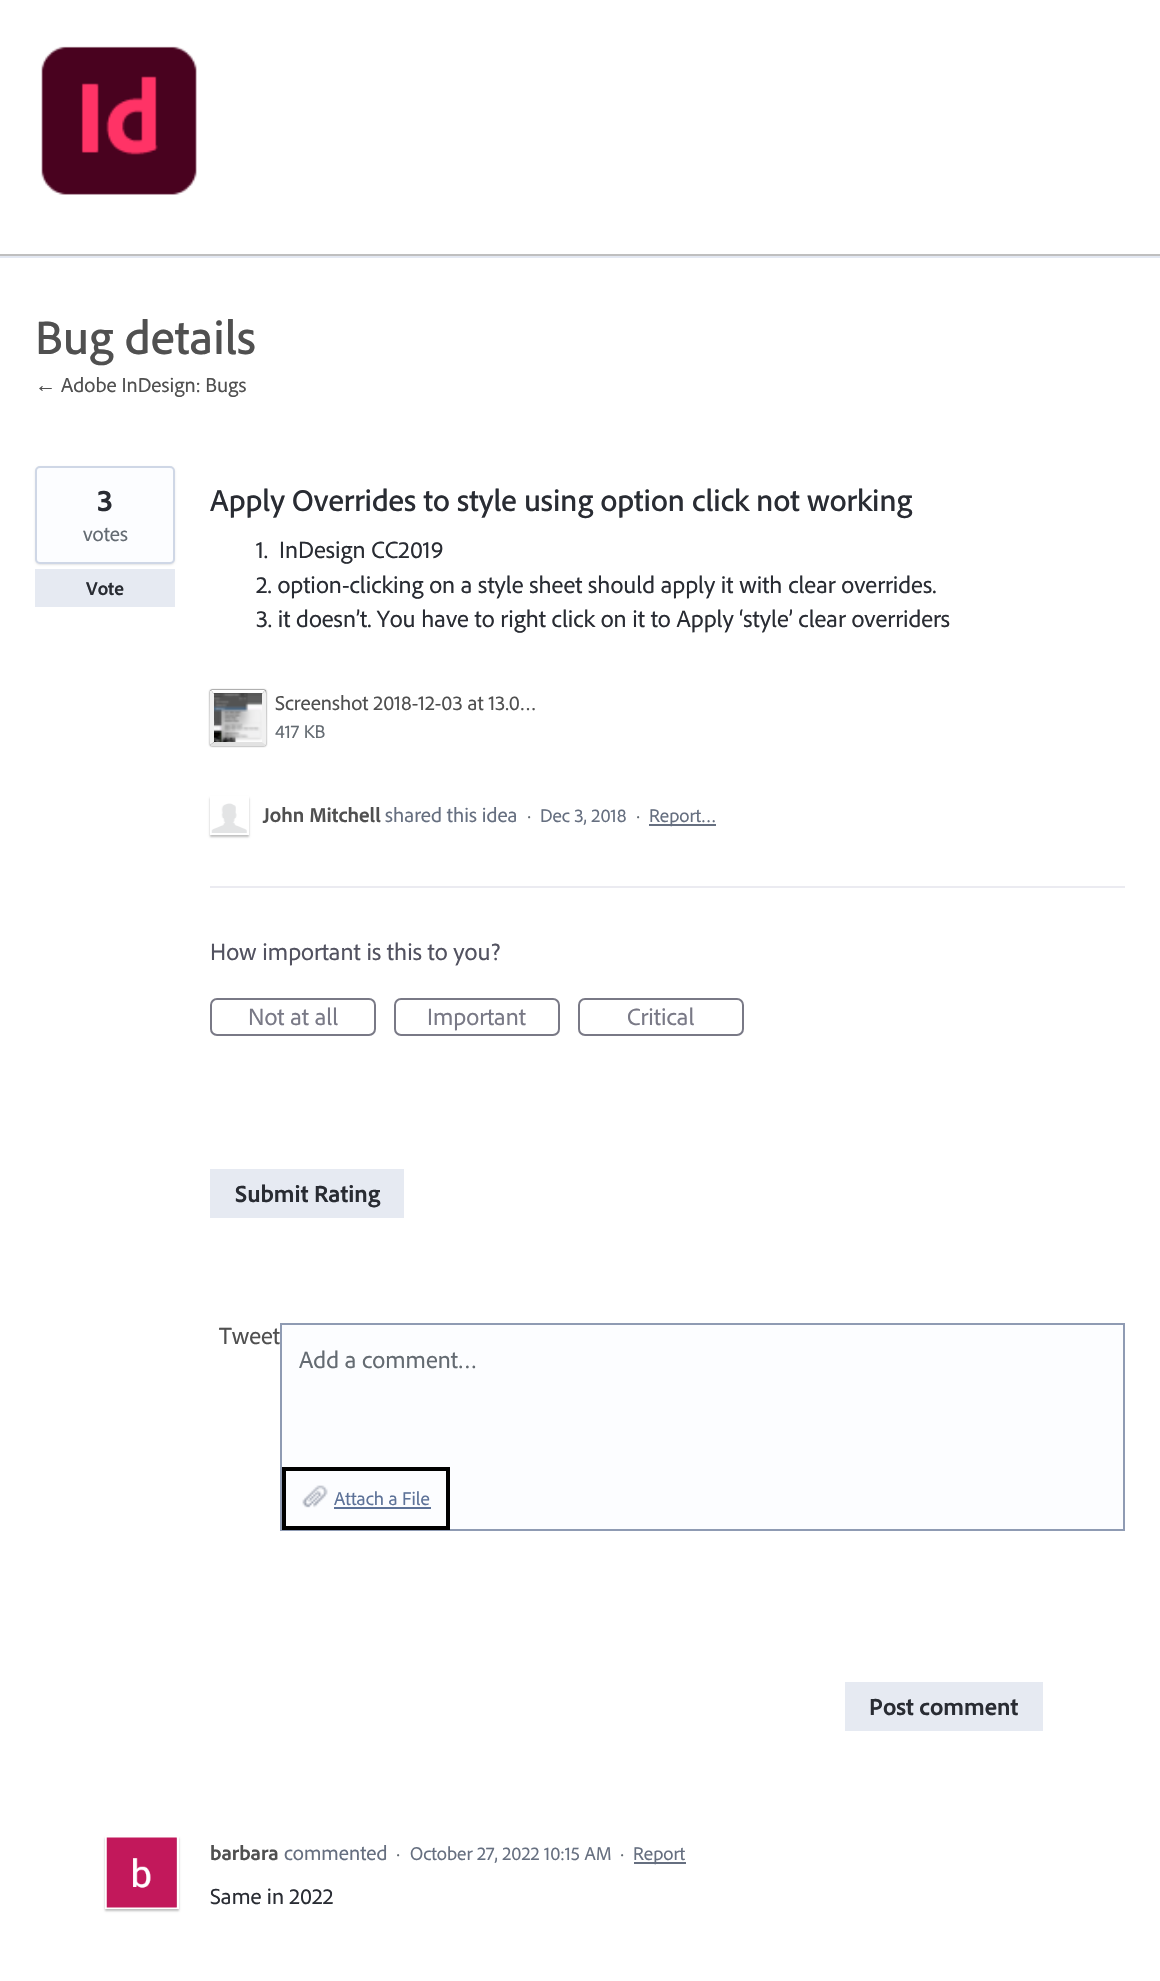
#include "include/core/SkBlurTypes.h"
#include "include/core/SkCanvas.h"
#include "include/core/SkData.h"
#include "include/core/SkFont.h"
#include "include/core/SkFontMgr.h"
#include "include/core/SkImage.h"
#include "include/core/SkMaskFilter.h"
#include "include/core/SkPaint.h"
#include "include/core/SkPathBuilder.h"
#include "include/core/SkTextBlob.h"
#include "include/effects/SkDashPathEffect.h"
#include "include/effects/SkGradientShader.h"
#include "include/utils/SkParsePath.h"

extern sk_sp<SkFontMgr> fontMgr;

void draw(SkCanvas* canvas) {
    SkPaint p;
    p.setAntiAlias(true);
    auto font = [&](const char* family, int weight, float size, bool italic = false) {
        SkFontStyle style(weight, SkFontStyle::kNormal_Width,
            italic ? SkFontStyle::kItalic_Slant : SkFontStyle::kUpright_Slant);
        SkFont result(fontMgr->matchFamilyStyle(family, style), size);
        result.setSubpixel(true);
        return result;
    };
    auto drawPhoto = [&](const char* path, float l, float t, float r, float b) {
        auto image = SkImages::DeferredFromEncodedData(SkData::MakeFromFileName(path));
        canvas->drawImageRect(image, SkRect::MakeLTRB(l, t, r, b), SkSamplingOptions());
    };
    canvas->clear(0xFFFFFFFF);
    p.setColor(0xFFBFBFBF);
    canvas->drawRect(SkRect::MakeLTRB(0, 254, 1160, 256), p);
    drawPhoto("media/1.png", 41, 46, 197, 195);
    p.setColor(0xFFE3E8F2);
    canvas->drawRect(SkRect::MakeLTRB(0, 256, 1160, 258), p);
    auto font1 = font("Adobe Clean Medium", 500, 49);
    p.setColor(0xFF505050);
    canvas->drawString("Bug details", 35, 354, font1, p);
    auto font2 = font("Liberation Sans", 400, 21);
    canvas->drawString("←", 35, 392, font2, p);
    auto font3 = font("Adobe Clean", 400, 21);
    canvas->drawString("Adobe InDesign: Bugs", 61, 392, font3, p);
    p.setColor(0x1A000000);
    p.setMaskFilter(SkMaskFilter::MakeBlur(kNormal_SkBlurStyle, 1));
    canvas->drawRoundRect(SkRect::MakeLTRB(35, 467, 175, 565), 5, 5, p);
    p.setMaskFilter(nullptr);
    p.setColor(0xFFFCFDFF);
    canvas->drawRoundRect(SkRect::MakeLTRB(36, 467, 174, 563), 4, 4, p);
    p.setStyle(SkPaint::kStroke_Style);
    p.setStrokeWidth(2);
    p.setColor(0xFFCFD7E6);
    canvas->drawRoundRect(SkRect::MakeLTRB(36, 467, 174, 563), 4, 4, p);
    auto font4 = font("Adobe Clean", 700, 31.5f);
    p.setStyle(SkPaint::kFill_Style);
    p.setColor(0xFF292C33);
    canvas->drawString("3", 97, 511, font4, p);
    p.setColor(0xFF646B72);
    canvas->drawString("votes", 83, 541, font3, p);
    p.setColor(0xFFE6EAF2);
    canvas->drawRect(SkRect::MakeLTRB(35, 569, 175, 607), p);
    auto font5 = font("Adobe Clean", 700, 19.25f);
    p.setColor(0xFF292C33);
    canvas->drawString("Vote", 86, 595, font5, p);
    auto font6 = font("Adobe Clean Medium", 500, 31.5f);
    canvas->drawString("Apply Overrides to style using option click not working", 210, 511, font6, p);
    auto font7 = font("Adobe Clean", 400, 24.5f);
    {
        const struct { const char* s; float x, y; } items[] = {
            {"1.", 256, 558},
            {"InDesign CC2019", 279, 558},
            {"2. option-clicking on a style sheet should apply it with clear overrides.", 256, 593},
            {"3. it doesn’t. You have to right click on it to Apply ‘style’ clear overriders", 256, 627},
        };
        for (auto [s, x, y] : items) {
            canvas->drawString(s, x, y, font7, p);
        }
    }
    p.setColor(0xBF000000);
    p.setMaskFilter(SkMaskFilter::MakeBlur(kNormal_SkBlurStyle, 1));
    canvas->drawRoundRect(SkRect::MakeLTRB(210, 690, 266, 746), 2, 2, p);
    p.setMaskFilter(nullptr);
    drawPhoto("media/2.png", 210, 689, 266, 746);
    p.setColor(0xFFFEFEFE);
    canvas->drawPath(SkPathBuilder().moveTo(212, 690).lineTo(211, 690).lineTo(214, 694).lineTo(214, 693).lineTo(262, 693).lineTo(262, 694).lineTo(265, 690).lineTo(264, 690).close().detach(), p);
    p.setColor(0xFFF1F1F1);
    canvas->drawPath(SkPathBuilder().moveTo(265, 690).cubicTo(267, 691, 266, 707, 266, 709).cubicTo(266, 713, 267, 743, 266, 745).lineTo(262, 742).lineTo(262, 694).close().detach(), p);
    p.setColor(0xFFE2E2E2);
    canvas->drawPath(SkPathBuilder().moveTo(211, 746).lineTo(210, 745).lineTo(214, 742).lineTo(262, 742).lineTo(266, 745).lineTo(265, 746).close().detach(), p);
    p.setColor(0xFFF1F1F1);
    canvas->drawPath(SkPathBuilder().moveTo(210, 691).cubicTo(210, 697, 209, 743, 210, 745).lineTo(214, 742).lineTo(214, 694).lineTo(211, 690).close().detach(), p);
    p.setColor(0xFF505050);
    canvas->drawString("Screenshot 2018-12-03 at 13.0…", 275, 710, font3, p);
    auto font8 = font("Adobe Clean", 400, 19.25f);
    p.setColor(0xFF646B72);
    canvas->drawString("417 KB", 275, 738, font8, p);
    canvas->save();
    canvas->clipPath(SkPathBuilder(SkPathFillType::kEvenOdd).moveTo(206, 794).lineTo(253, 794).lineTo(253, 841).lineTo(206, 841).close().moveTo(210, 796).lineTo(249, 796).lineTo(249, 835).lineTo(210, 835).close().detach(), true);
    p.setColor(0x40000000);
    p.setMaskFilter(SkMaskFilter::MakeBlur(kNormal_SkBlurStyle, 1));
    canvas->drawRect(SkRect::MakeLTRB(210, 798, 249, 837), p);
    p.setMaskFilter(nullptr);
    canvas->restore();
    p.setStyle(SkPaint::kStroke_Style);
    p.setColor(0xFFFFFFFF);
    canvas->drawRect(SkRect::MakeLTRB(211, 797, 248, 834), p);
    drawPhoto("media/3.png", 211, 803, 247, 833);
    auto font9 = font("Adobe Clean", 700, 21);
    p.setStyle(SkPaint::kFill_Style);
    p.setColor(0xFF505050);
    canvas->drawString("John Mitchell", 263, 822, font9, p);
    p.setColor(0xFF666F80);
    canvas->drawString("shared this idea", 385, 822, font3, p);
    p.setColor(0xFF646B72);
    canvas->drawString("·", 527, 822, font8, p);
    p.setColor(0xFF666F80);
    canvas->drawString("Dec 3, 2018", 540, 822, font8, p);
    p.setColor(0xFF646B72);
    canvas->drawString("·", 636, 822, font8, p);
    p.setColor(0xFF666F80);
    canvas->drawRect(SkRect::MakeLTRB(649, 824, 716, 826), p);
    canvas->drawString("Report…", 649, 822, font8, p);
    p.setColor(0xFFEBEBF1);
    canvas->drawRect(SkRect::MakeLTRB(210, 886, 1125, 888), p);
    p.setColor(0xFF525260);
    canvas->drawString("How important is this to you?", 210, 960, font7, p);
    p.setStyle(SkPaint::kStroke_Style);
    p.setColor(0xFF797986);
    canvas->drawRoundRect(SkRect::MakeLTRB(211, 999, 375, 1035), 6, 6, p);
    p.setStyle(SkPaint::kFill_Style);
    canvas->drawString("Not at all", 248, 1025, font7, p);
    p.setStyle(SkPaint::kStroke_Style);
    canvas->drawRoundRect(SkRect::MakeLTRB(395, 999, 559, 1035), 6, 6, p);
    p.setStyle(SkPaint::kFill_Style);
    canvas->drawString("Important", 427, 1025, font7, p);
    p.setStyle(SkPaint::kStroke_Style);
    canvas->drawRoundRect(SkRect::MakeLTRB(579, 999, 743, 1035), 6, 6, p);
    p.setStyle(SkPaint::kFill_Style);
    canvas->drawString("Critical", 627, 1025, font7, p);
    p.setColor(0xFFE6EAF2);
    canvas->drawRect(SkRect::MakeLTRB(210, 1169, 404, 1218), p);
    auto font10 = font("Adobe Clean", 700, 24.5f);
    p.setColor(0xFF292C33);
    canvas->drawString("Submit Rating", 235, 1202, font10, p);
    p.setColor(0xFF505050);
    canvas->drawString("Tweet", 219, 1344, font7, p);
    p.setColor(0xFFFCFDFF);
    canvas->drawRect(SkRect::MakeLTRB(281, 1324, 1124, 1530), p);
    p.setStyle(SkPaint::kStroke_Style);
    p.setColor(0xFF8F9BB3);
    canvas->drawRect(SkRect::MakeLTRB(281, 1324, 1124, 1530), p);
    p.setStyle(SkPaint::kFill_Style);
    p.setColor(0xFF646B72);
    canvas->drawString("Add a comment…", 299, 1368, font7, p);
    drawPhoto("media/4.png", 302, 1485, 328, 1508);
    p.setStyle(SkPaint::kStroke_Style);
    p.setStrokeWidth(4);
    p.setColor(0xFF000000);
    canvas->drawRect(SkRect::MakeLTRB(284, 1469, 448, 1528), p);
    p.setStyle(SkPaint::kFill_Style);
    p.setColor(0xFF5D7298);
    canvas->drawString("Attach a File", 334, 1505, font8, p);
    canvas->drawRect(SkRect::MakeLTRB(334, 1507, 431, 1509), p);
    p.setColor(0xFFE6EAF2);
    canvas->drawRect(SkRect::MakeLTRB(845, 1682, 1043, 1731), p);
    p.setColor(0xFF292C33);
    canvas->drawString("Post comment", 869, 1715, font10, p);
    p.setColor(0x40000000);
    p.setMaskFilter(SkMaskFilter::MakeBlur(kNormal_SkBlurStyle, 1));
    canvas->drawRect(SkRect::MakeLTRB(105, 1838, 179, 1911), p);
    p.setMaskFilter(nullptr);
    p.setStyle(SkPaint::kStroke_Style);
    p.setStrokeWidth(2);
    p.setColor(0xFFFFFFFF);
    canvas->drawRect(SkRect::MakeLTRB(106, 1837, 178, 1908), p);
    drawPhoto("media/5.png", 106, 1837, 177, 1908);
    p.setStyle(SkPaint::kFill_Style);
    p.setColor(0xFF505050);
    canvas->drawString("barbara", 210, 1860, font9, p);
    p.setColor(0xFF666F80);
    canvas->drawString("commented", 284, 1860, font3, p);
    p.setColor(0xFF646B72);
    canvas->drawString("·", 396, 1860, font8, p);
    p.setColor(0xFF666F80);
    canvas->drawString("October 27, 2022 10:15 AM", 410, 1860, font8, p);
    p.setColor(0xFF646B72);
    canvas->drawString("·", 620, 1860, font8, p);
    p.setColor(0xFF666F80);
    canvas->drawRect(SkRect::MakeLTRB(634, 1862, 686, 1864), p);
    canvas->drawString("Report", 633, 1860, font8, p);
    auto font11 = font("Adobe Clean", 400, 22.75f);
    p.setColor(0xFF292C33);
    canvas->drawString("Same in 2022", 210, 1904, font11, p);
}
